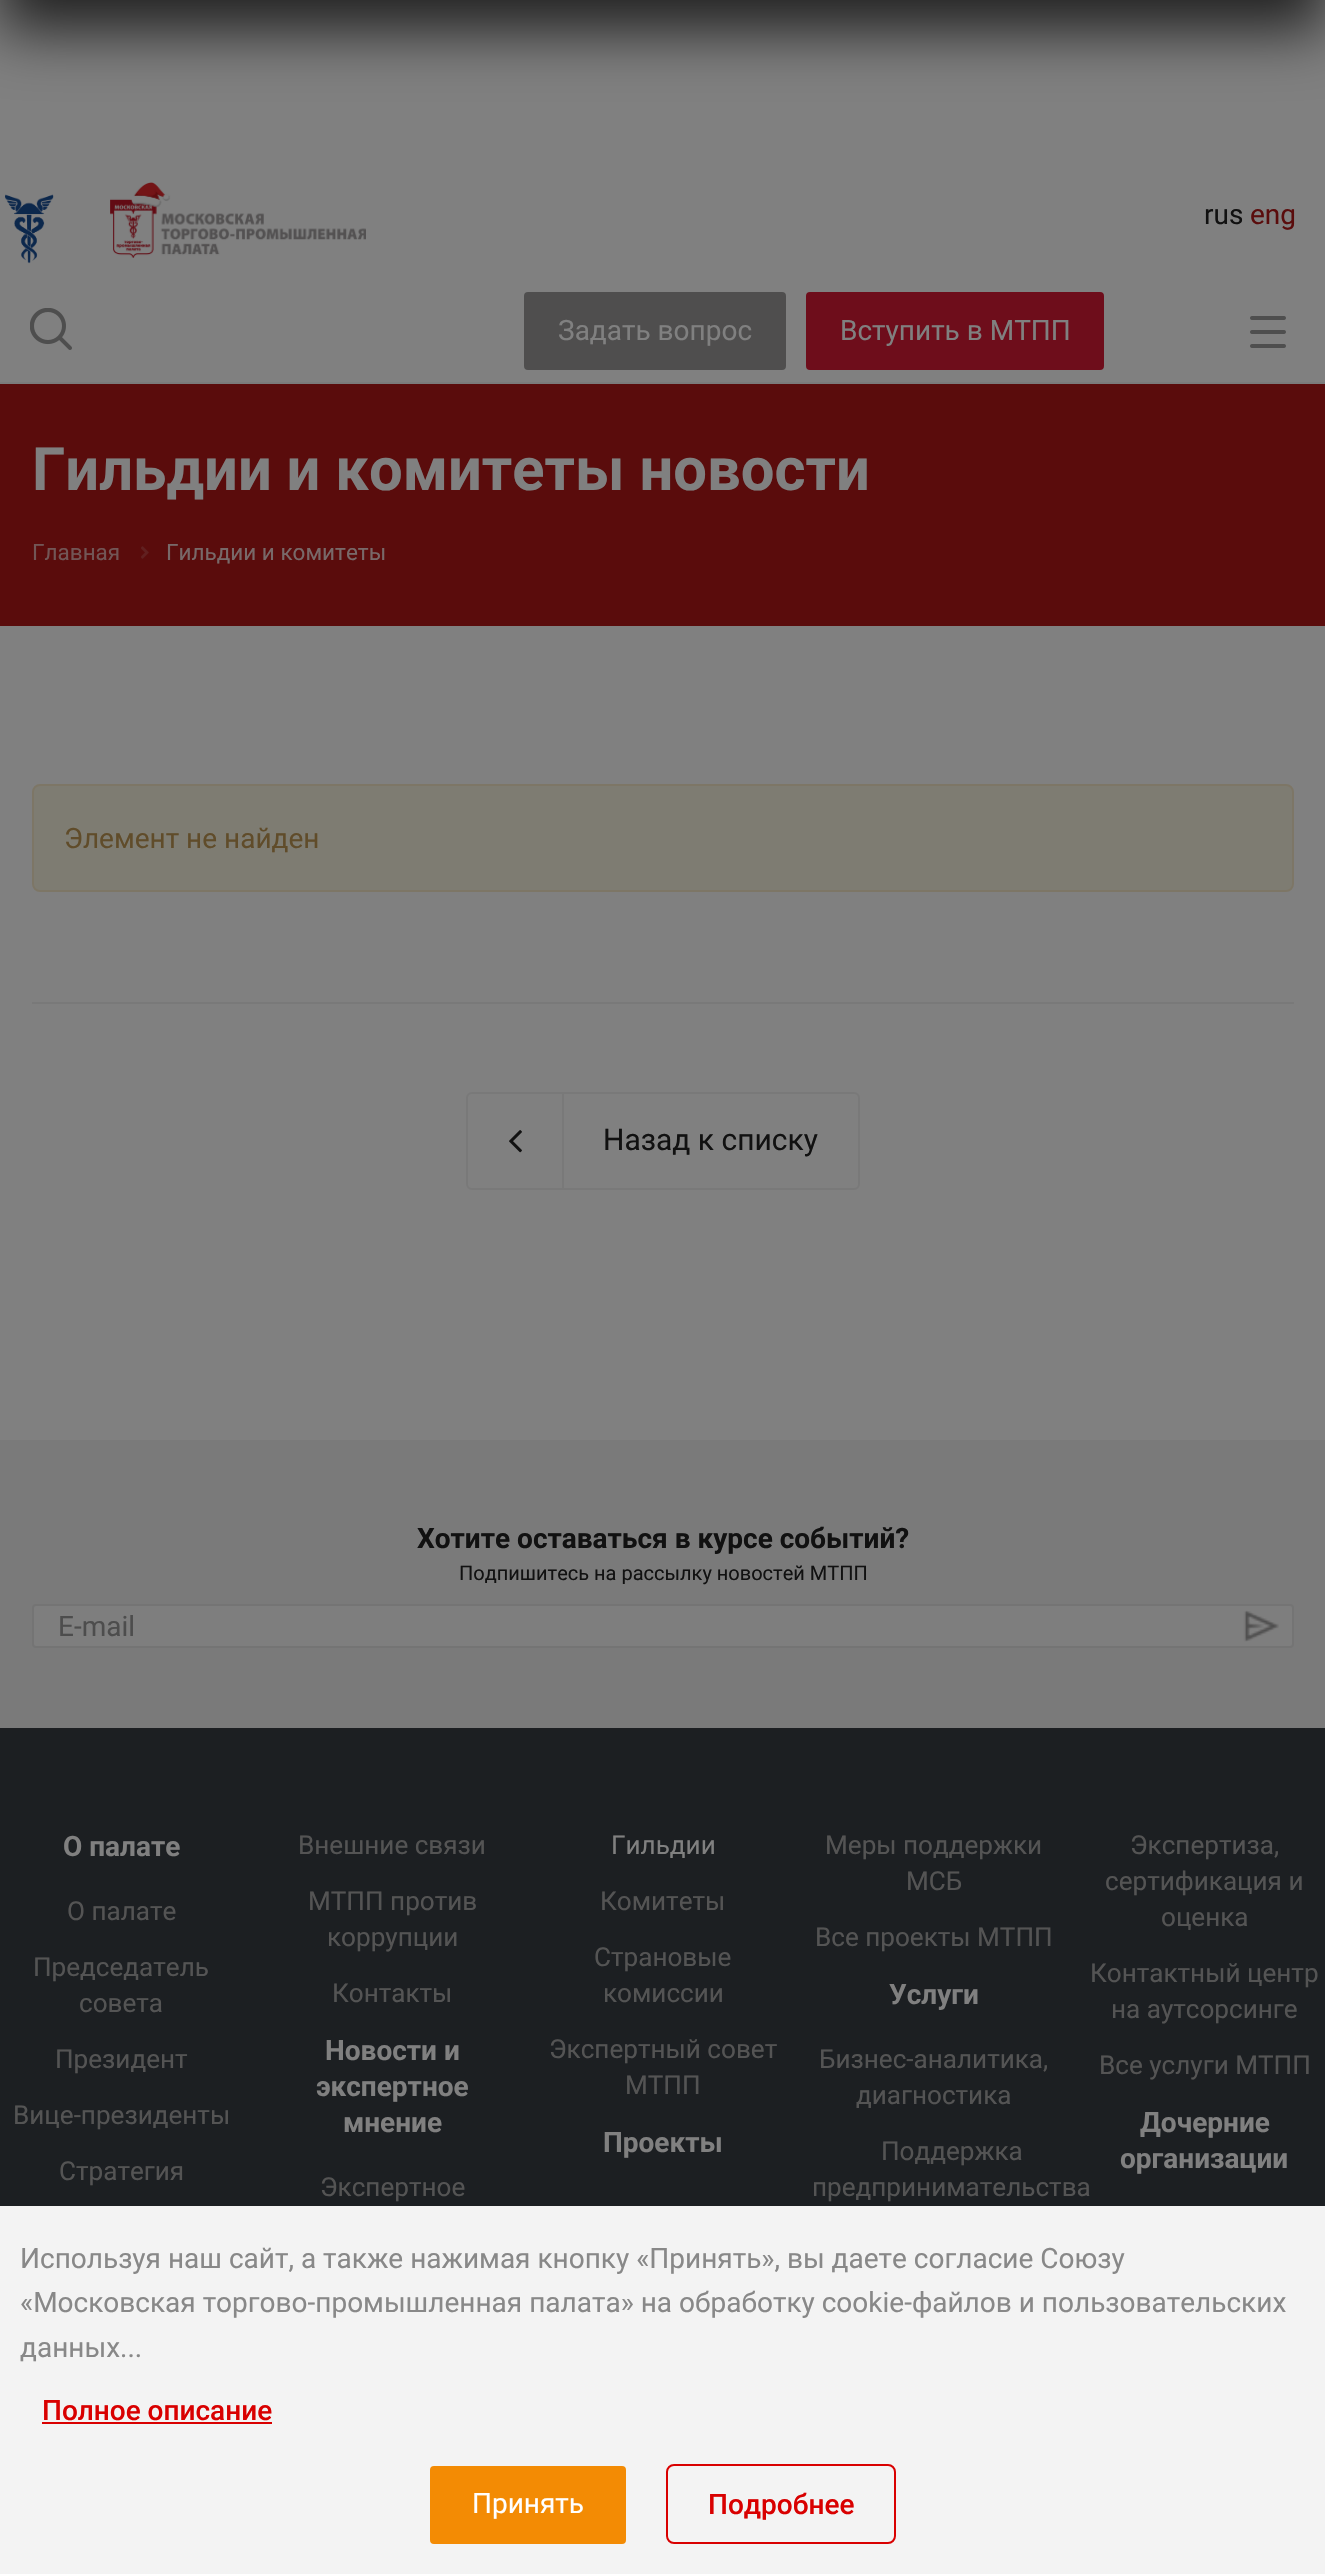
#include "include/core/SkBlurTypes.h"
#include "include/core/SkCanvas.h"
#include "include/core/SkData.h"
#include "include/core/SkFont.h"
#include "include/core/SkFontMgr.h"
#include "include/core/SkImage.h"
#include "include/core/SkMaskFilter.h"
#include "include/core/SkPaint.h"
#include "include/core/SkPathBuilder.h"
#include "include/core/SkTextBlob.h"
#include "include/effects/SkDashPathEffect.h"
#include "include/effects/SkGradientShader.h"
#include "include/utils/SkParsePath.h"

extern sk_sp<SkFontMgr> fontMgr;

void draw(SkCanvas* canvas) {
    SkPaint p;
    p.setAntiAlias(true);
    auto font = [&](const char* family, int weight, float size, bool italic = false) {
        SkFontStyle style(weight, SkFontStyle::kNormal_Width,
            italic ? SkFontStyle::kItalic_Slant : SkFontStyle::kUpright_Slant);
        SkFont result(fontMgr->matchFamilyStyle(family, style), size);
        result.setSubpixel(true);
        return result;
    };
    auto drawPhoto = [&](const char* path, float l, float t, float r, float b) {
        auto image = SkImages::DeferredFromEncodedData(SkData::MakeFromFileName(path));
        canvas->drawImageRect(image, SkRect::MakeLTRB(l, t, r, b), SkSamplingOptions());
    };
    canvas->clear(0xFF808080);
    p.setColor(0xBF000000);
    p.setMaskFilter(SkMaskFilter::MakeBlur(kNormal_SkBlurStyle, 30));
    canvas->drawRect(SkRect::MakeLTRB(0, -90, 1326, 30), p);
    p.setMaskFilter(nullptr);
    p.setColor(0xFF7B7B7B);
    canvas->drawRect(SkRect::MakeLTRB(0, 382, 1325, 384), p);
    drawPhoto("media/1.png", 5, 194, 54, 264);
    drawPhoto("media/2.png", 110, 182, 366, 258);
    auto font1 = font("Roboto", 400, 28);
    p.setColor(0xFF111111);
    canvas->drawString("rus", 1204, 224, font1, p);
    p.setColor(0xFF5A0C0C);
    canvas->drawString("eng", 1250, 224, font1, p);
    drawPhoto("media/3.png", 30, 308, 72, 350);
    p.setColor(0xFF4F4E4E);
    canvas->drawRoundRect(SkRect::MakeLTRB(525, 293, 785, 369), 3, 3, p);
    p.setStyle(SkPaint::kStroke_Style);
    p.setStrokeWidth(2);
    canvas->drawRoundRect(SkRect::MakeLTRB(525, 293, 785, 369), 3, 3, p);
    p.setStyle(SkPaint::kFill_Style);
    p.setColor(0xFF808080);
    canvas->drawString("Задать вопрос", 558, 340, font1, p);
    p.setColor(0xFF6E0D1B);
    canvas->drawRoundRect(SkRect::MakeLTRB(807, 293, 1103, 369), 3, 3, p);
    p.setStyle(SkPaint::kStroke_Style);
    canvas->drawRoundRect(SkRect::MakeLTRB(807, 293, 1103, 369), 3, 3, p);
    p.setStyle(SkPaint::kFill_Style);
    p.setColor(0xFF808080);
    canvas->drawString("Вступить в МТПП", 840, 340, font1, p);
    drawPhoto("media/4.png", 1250, 316, 1286, 348);
    p.setColor(0xFF5A0C0C);
    canvas->drawRect(SkRect::MakeLTRB(0, 384, 1325, 626), p);
    auto font2 = font("Roboto", 700, 59.75f);
    p.setColor(0xFF808080);
    canvas->drawString("Гильдии и комитеты новости", 32, 490, font2, p);
    auto font3 = font("Roboto", 400, 22.5f);
    p.setColor(0xFF725656);
    canvas->drawString("Главная", 32, 560, font3, p);
    drawPhoto("media/5.png", 141, 546, 149, 559);
    p.setColor(0xFF786969);
    canvas->drawString("Гильдии и комитеты", 166, 560, font3, p);
    p.setColor(0xFF7E7C72);
    canvas->drawRoundRect(SkRect::MakeLTRB(33, 785, 1293, 891), 7, 7, p);
    p.setStyle(SkPaint::kStroke_Style);
    p.setColor(0xFF7D7666);
    canvas->drawRoundRect(SkRect::MakeLTRB(33, 785, 1293, 891), 7, 7, p);
    p.setStyle(SkPaint::kFill_Style);
    p.setColor(0xFF604C2A);
    canvas->drawString("Элемент не найден", 64, 848, font1, p);
    p.setColor(0xFF797979);
    canvas->drawRect(SkRect::MakeLTRB(32, 1002, 1294, 1004), p);
    p.setStyle(SkPaint::kStroke_Style);
    canvas->drawRoundRect(SkRect::MakeLTRB(467, 1093, 859, 1189), 5, 5, p);
    drawPhoto("media/6.png", 509, 1130, 522, 1153);
    p.setStyle(SkPaint::kFill_Style);
    canvas->drawRect(SkRect::MakeLTRB(562, 1094, 564, 1188), p);
    auto font4 = font("Roboto", 400, 30);
    p.setColor(0xFF111111);
    canvas->drawString("Назад к списку", 603, 1150, font4, p);
    p.setColor(0xFF1C1F22);
    canvas->drawRect(SkRect::MakeLTRB(0, 1728, 1325, 2206), p);
    p.setColor(0xFF7A7A7A);
    canvas->drawRect(SkRect::MakeLTRB(0, 1440, 1325, 1728), p);
    auto font5 = font("Roboto", 700, 28);
    p.setColor(0xFF111111);
    canvas->drawString("Хотите оставаться в курсе событий?", 417, 1548, font5, p);
    auto font6 = font("Roboto", 400, 20);
    canvas->drawString("Подпишитесь на рассылку новостей МТПП", 459, 1580, font6, p);
    p.setColor(0xFF7E7E7E);
    canvas->drawRoundRect(SkRect::MakeLTRB(33, 1605, 1293, 1647), 3, 3, p);
    p.setStyle(SkPaint::kStroke_Style);
    p.setColor(0xFF747474);
    canvas->drawRoundRect(SkRect::MakeLTRB(33, 1605, 1293, 1647), 3, 3, p);
    p.setStyle(SkPaint::kFill_Style);
    p.setColor(0xFF4D4D4D);
    canvas->drawString("E-mail", 58, 1636, font1, p);
    drawPhoto("media/7.png", 1243, 1610, 1279, 1642);
    p.setColor(0xFF808080);
    canvas->drawString("О палате", 63, 1856, font5, p);
    auto font7 = font("Roboto", 400, 26.1f);
    p.setColor(0xFF545454);
    canvas->drawString("Внешние связи", 298, 1854, font7, p);
    p.setColor(0xFF808080);
    canvas->drawString("Гильдии", 611, 1854, font7, p);
    p.setColor(0xFF545454);
    {
        const struct { const char* s; float x, y; } items[] = {
            {"Меры поддержки", 825, 1854},
            {"МСБ", 906, 1890},
            {"Экспертиза,", 1130, 1854},
            {"сертификация и", 1105, 1890},
            {"оценка", 1161, 1926},
            {"О палате", 67, 1920},
            {"МТПП против", 308, 1910},
            {"коррупции", 327, 1946},
            {"Комитеты", 600, 1910},
            {"Все проекты МТПП", 815, 1946},
            {"Председатель", 33, 1976},
            {"совета", 79, 2012},
            {"Контакты", 332, 2002},
            {"Страновые", 594, 1966},
            {"комиссии", 603, 2002},
        };
        for (auto [s, x, y] : items) {
            canvas->drawString(s, x, y, font7, p);
        }
    }
    p.setColor(0xFF808080);
    canvas->drawString("Услуги", 889, 2004, font5, p);
    p.setColor(0xFF545454);
    {
        const struct { const char* s; float x, y; } items[] = {
            {"Контактный центр", 1090, 1982},
            {"на аутсорсинге", 1111, 2018},
            {"Президент", 55, 2068},
        };
        for (auto [s, x, y] : items) {
            canvas->drawString(s, x, y, font7, p);
        }
    }
    p.setColor(0xFF808080);
    {
        const struct { const char* s; float x, y; } items[] = {
            {"Новости и", 325, 2060},
            {"экспертное", 316, 2096},
            {"мнение", 343, 2132},
        };
        for (auto [s, x, y] : items) {
            canvas->drawString(s, x, y, font5, p);
        }
    }
    p.setColor(0xFF545454);
    {
        const struct { const char* s; float x, y; } items[] = {
            {"Экспертный совет", 549, 2058},
            {"МТПП", 625, 2094},
            {"Бизнес-аналитика,", 819, 2068},
            {"диагностика", 856, 2104},
            {"Все услуги МТПП", 1099, 2074},
            {"Вице-президенты", 13, 2124},
        };
        for (auto [s, x, y] : items) {
            canvas->drawString(s, x, y, font7, p);
        }
    }
    p.setColor(0xFF808080);
    canvas->drawString("Проекты", 603, 2152, font5, p);
    p.setColor(0xFF545454);
    canvas->drawString("Поддержка", 881, 2160, font7, p);
    canvas->drawString("предпринимательства", 812, 2196, font7, p);
    p.setColor(0xFF808080);
    canvas->drawString("Дочерние", 1140, 2132, font5, p);
    canvas->drawString("организации", 1120, 2168, font5, p);
    p.setColor(0xFF545454);
    canvas->drawString("Стратегия", 59, 2180, font7, p);
    canvas->drawString("Экспертное", 320, 2196, font7, p);
    p.setColor(0xFFF3F3F3);
    canvas->drawRect(SkRect::MakeLTRB(0, 2206, 1325, 2574), p);
    p.setColor(0xFF888888);
    {
        const struct { const char* s; float x, y; } items[] = {
            {"Используя наш сайт, а также нажимая кнопку «Принять», вы даете согласие Союзу", 20, 2268},
            {"«Московская торгово-промышленная палата» на обработку cookie-файлов и пользовательских", 20, 2312},
            {"данных...", 20, 2357},
        };
        for (auto [s, x, y] : items) {
            canvas->drawString(s, x, y, font1, p);
        }
    }
    auto font8 = font("Roboto", 500, 28);
    p.setColor(0xFFD90000);
    canvas->drawString("Полное описание", 42, 2420, font8, p);
    canvas->drawRect(SkRect::MakeLTRB(42, 2422, 272, 2424), p);
    p.setColor(0xFFF38B04);
    canvas->drawRoundRect(SkRect::MakeLTRB(431, 2467, 625, 2543), 3, 3, p);
    p.setStyle(SkPaint::kStroke_Style);
    canvas->drawRoundRect(SkRect::MakeLTRB(431, 2467, 625, 2543), 3, 3, p);
    p.setStyle(SkPaint::kFill_Style);
    p.setColor(0xFFFFFFFF);
    canvas->drawString("Принять", 472, 2513, font1, p);
    p.setStyle(SkPaint::kStroke_Style);
    p.setColor(0xFFD90000);
    canvas->drawRoundRect(SkRect::MakeLTRB(667, 2465, 895, 2543), 7, 7, p);
    p.setStyle(SkPaint::kFill_Style);
    canvas->drawString("Подробнее", 708, 2514, font8, p);
}
